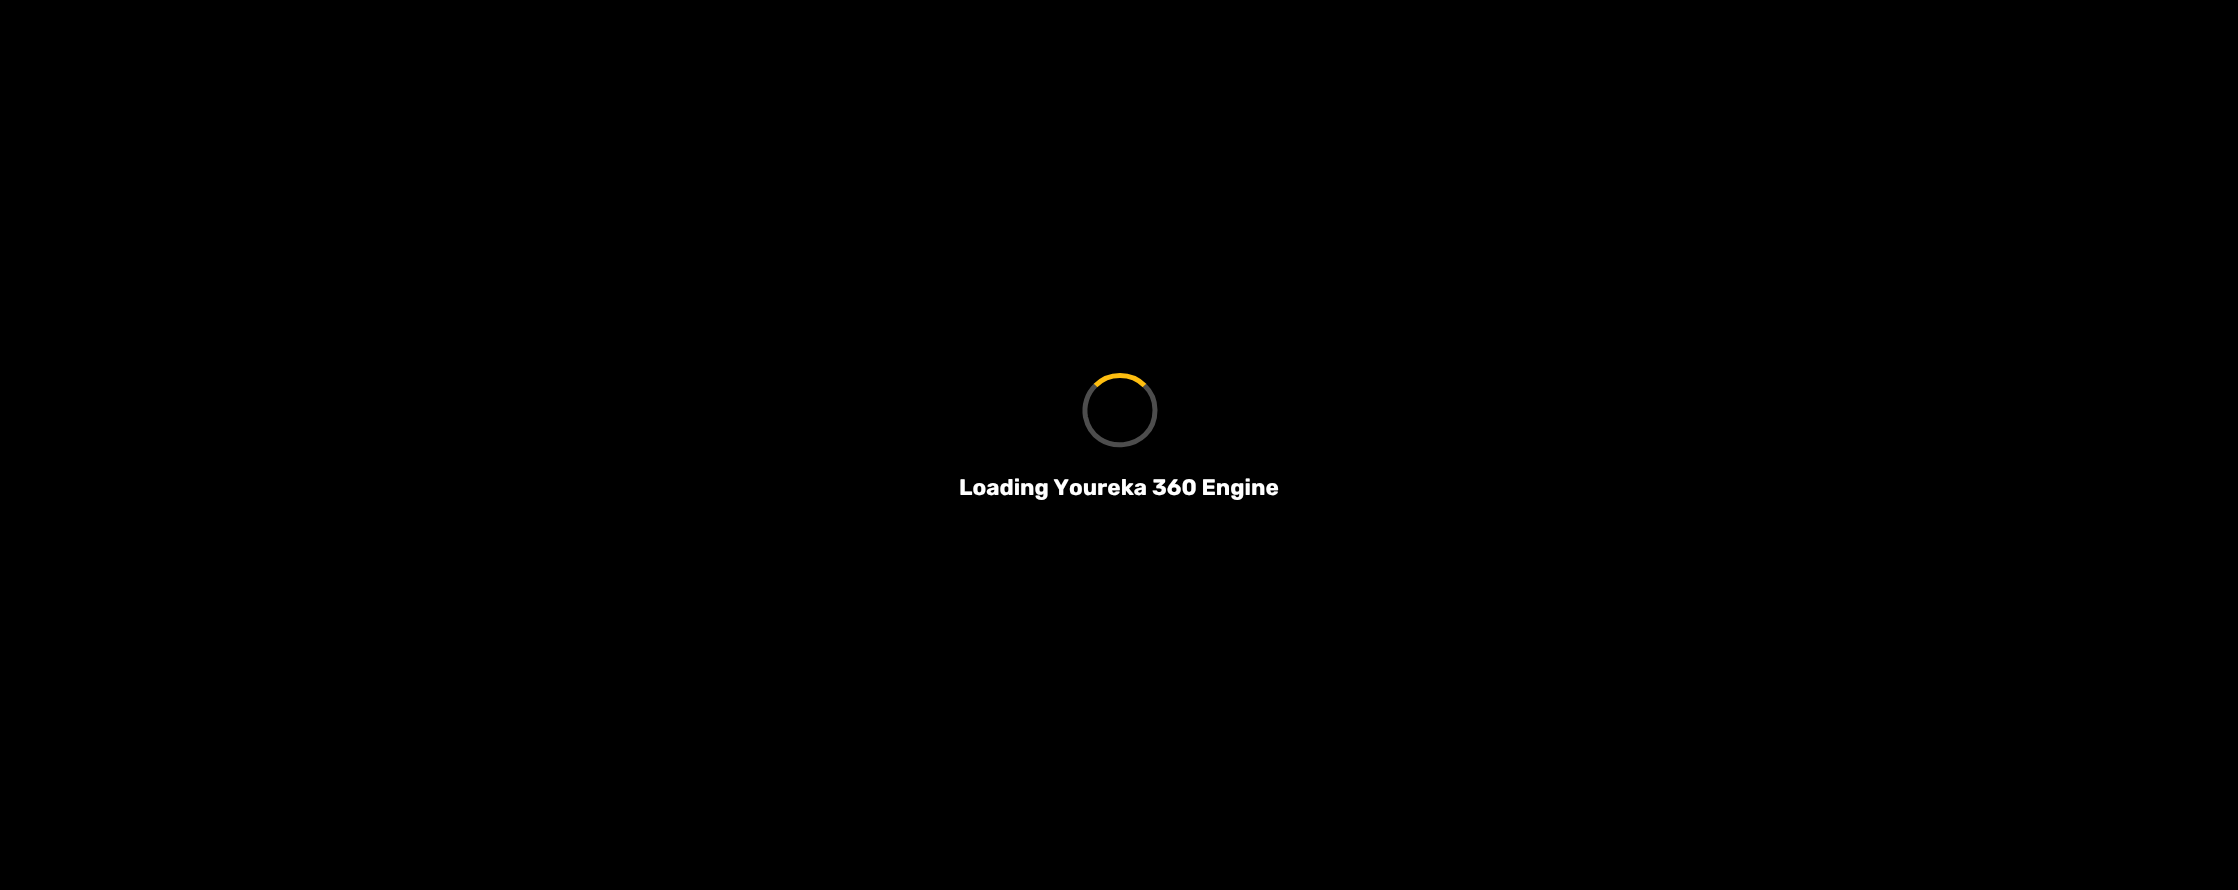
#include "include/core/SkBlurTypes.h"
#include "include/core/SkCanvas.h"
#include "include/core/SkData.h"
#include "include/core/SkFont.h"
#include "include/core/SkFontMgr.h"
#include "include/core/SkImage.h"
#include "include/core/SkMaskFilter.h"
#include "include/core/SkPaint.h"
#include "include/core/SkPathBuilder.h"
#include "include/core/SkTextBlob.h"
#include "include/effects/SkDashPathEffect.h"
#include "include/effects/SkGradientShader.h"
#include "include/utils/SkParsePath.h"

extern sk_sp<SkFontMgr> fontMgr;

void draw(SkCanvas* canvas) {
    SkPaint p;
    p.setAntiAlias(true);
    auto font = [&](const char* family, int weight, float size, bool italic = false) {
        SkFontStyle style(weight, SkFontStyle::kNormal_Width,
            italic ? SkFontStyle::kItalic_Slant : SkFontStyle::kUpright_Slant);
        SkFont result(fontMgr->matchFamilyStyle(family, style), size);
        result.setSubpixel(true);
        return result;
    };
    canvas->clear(0xFF000000);
    p.setStyle(SkPaint::kStroke_Style);
    p.setStrokeWidth(5);
    p.setColor(0xFFFEBE10);
    canvas->drawPath(SkPathBuilder().moveTo(1095.5f, 385.5f).cubicTo(1108.5f, 372, 1131.5f, 372, 1144.5f, 385.5f).detach(), p);
    p.setColor(0x4DFFFFFF);
    canvas->drawPath(SkPathBuilder().moveTo(1144.5f, 385.5f).cubicTo(1151.5f, 392, 1155, 401, 1155, 410).cubicTo(1155, 452, 1094, 458, 1085.5f, 417).cubicTo(1083.5f, 405.5f, 1087, 393.5f, 1095.5f, 385.5f).detach(), p);
    auto font1 = font("Rubik", 700, 22.5f);
    p.setStyle(SkPaint::kFill_Style);
    p.setColor(0xFFFFFFFF);
    canvas->drawString("Loading Youreka 360 Engine", 959, 495, font1, p);
}
